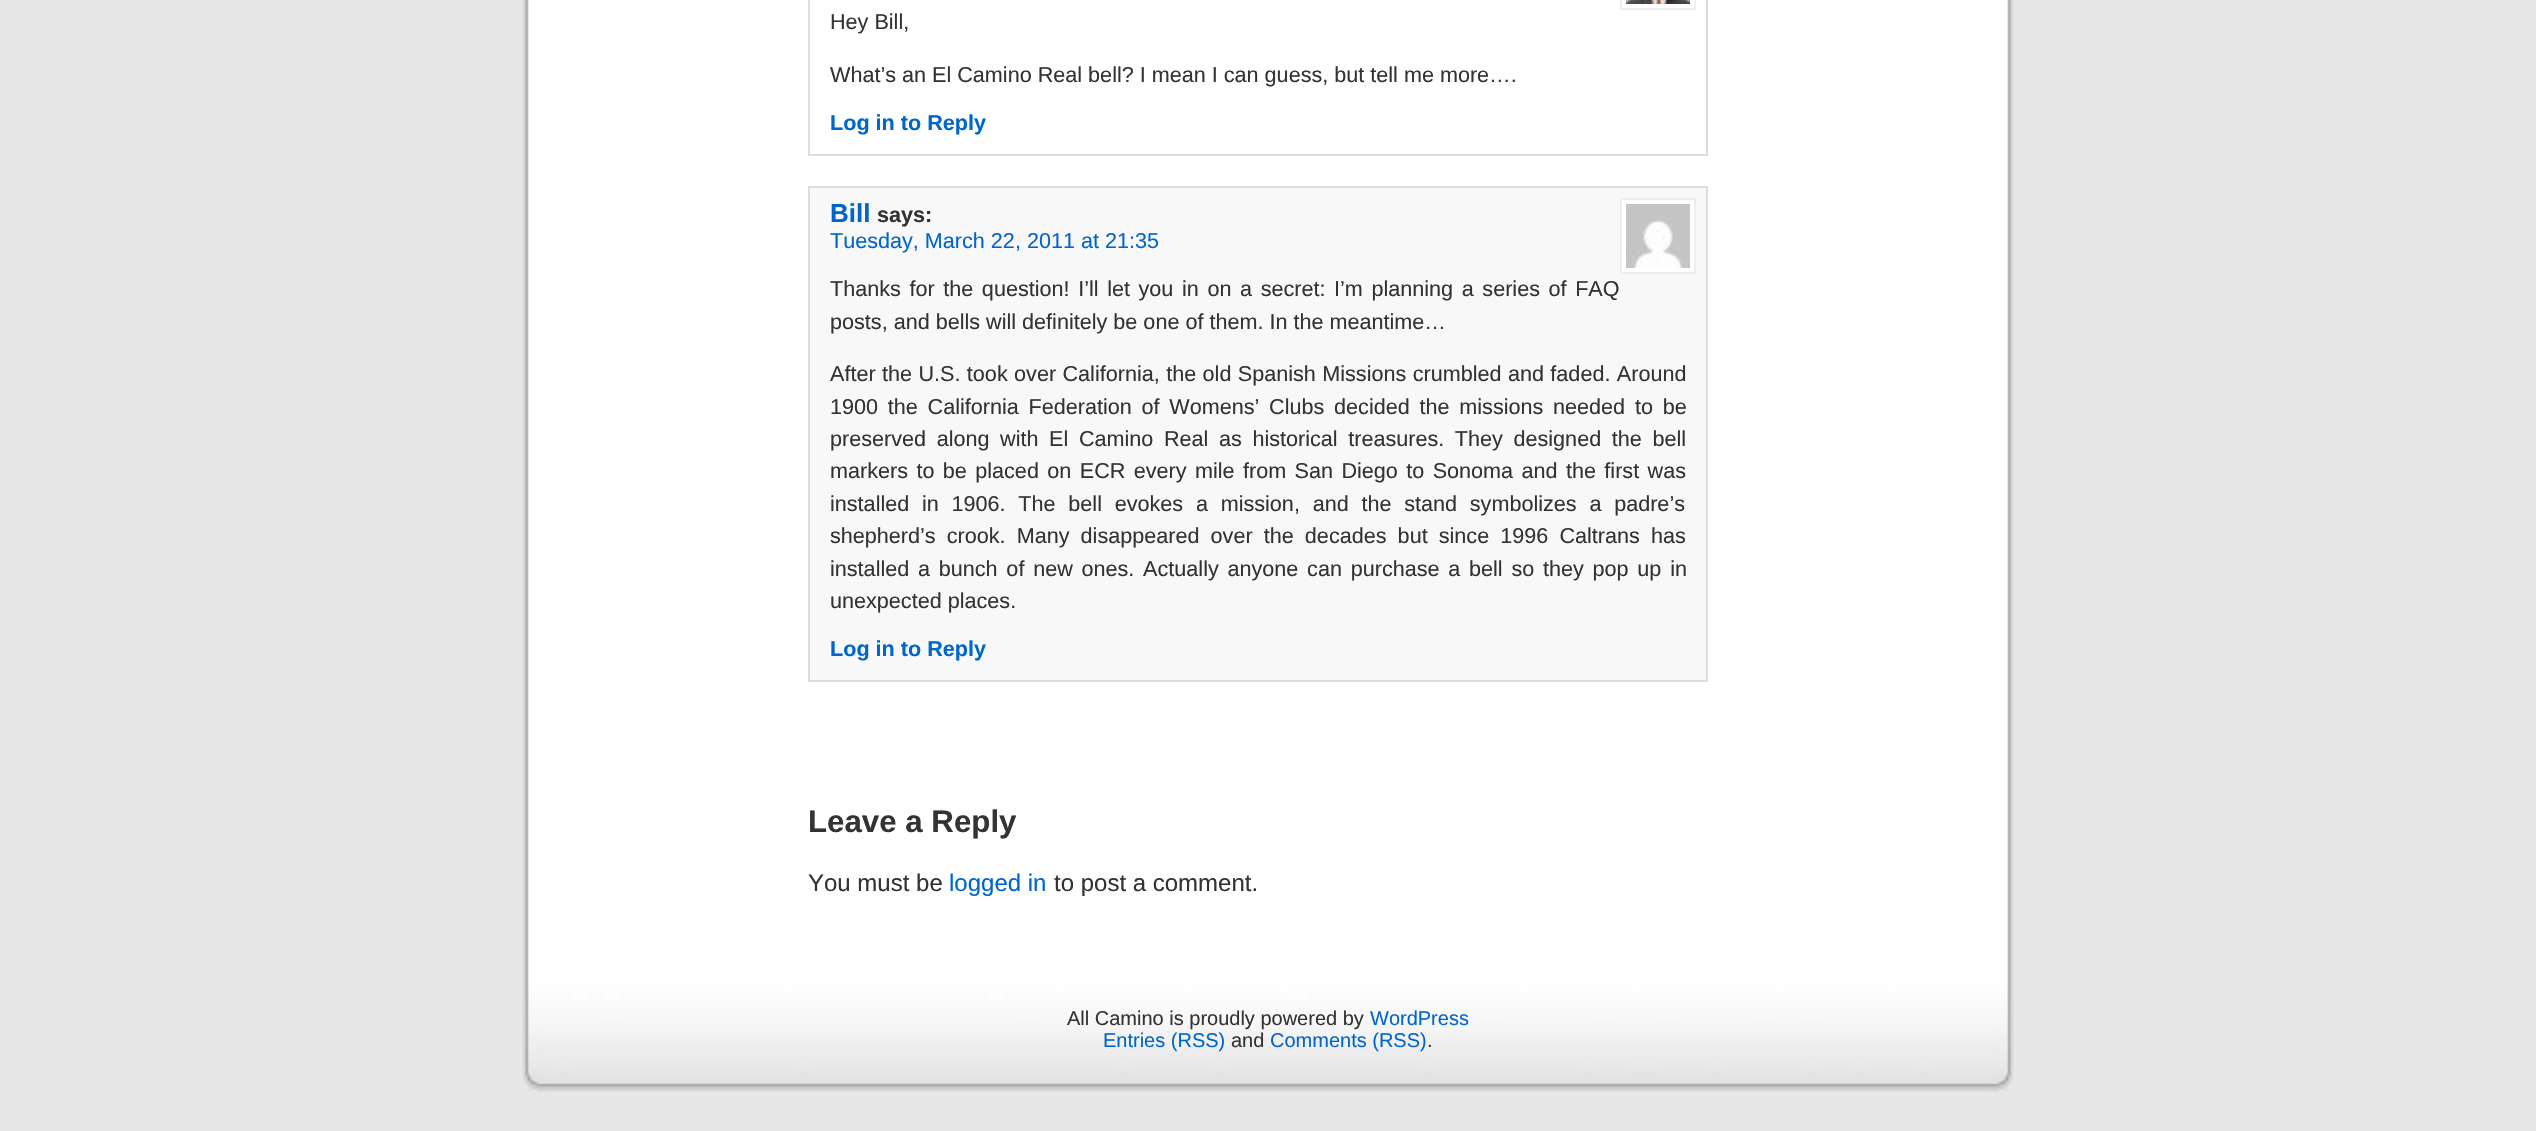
#include "include/core/SkBlurTypes.h"
#include "include/core/SkCanvas.h"
#include "include/core/SkData.h"
#include "include/core/SkFont.h"
#include "include/core/SkFontMgr.h"
#include "include/core/SkImage.h"
#include "include/core/SkMaskFilter.h"
#include "include/core/SkPaint.h"
#include "include/core/SkPathBuilder.h"
#include "include/core/SkTextBlob.h"
#include "include/effects/SkDashPathEffect.h"
#include "include/effects/SkGradientShader.h"
#include "include/utils/SkParsePath.h"

extern sk_sp<SkFontMgr> fontMgr;

void draw(SkCanvas* canvas) {
    SkPaint p;
    p.setAntiAlias(true);
    auto font = [&](const char* family, int weight, float size, bool italic = false) {
        SkFontStyle style(weight, SkFontStyle::kNormal_Width,
            italic ? SkFontStyle::kItalic_Slant : SkFontStyle::kUpright_Slant);
        SkFont result(fontMgr->matchFamilyStyle(family, style), size);
        result.setSubpixel(true);
        return result;
    };
    auto drawTracked = [&](const char* s, float x, float y, const SkFont& font, const SkPaint& ink, float letter, float word) {
        std::vector<SkGlyphID> glyphs(font.countText(s, strlen(s), SkTextEncoding::kUTF8));
        std::vector<float> xs(glyphs.size());
        font.textToGlyphs(s, strlen(s), SkTextEncoding::kUTF8, glyphs);
        font.getXPos(glyphs, xs, x);
        float extra = 0;
        for (size_t i = 0; i < glyphs.size(); i++) {
            xs[i] += extra;
            extra += letter + word * (glyphs[i] == font.unicharToGlyph(' '));
        }
        canvas->drawTextBlob(SkTextBlob::MakeFromPosHGlyphs(glyphs, xs, y, font), 0, 0, ink);
    };
    auto drawPhoto = [&](const char* path, float l, float t, float r, float b) {
        auto image = SkImages::DeferredFromEncodedData(SkData::MakeFromFileName(path));
        canvas->drawImageRect(image, SkRect::MakeLTRB(l, t, r, b), SkSamplingOptions());
    };
    canvas->clear(0xFFE7E7E7);
    drawPhoto("media/1.png", 522, 0, 2014, 968);
    p.setStyle(SkPaint::kStroke_Style);
    p.setStrokeWidth(2);
    p.setColor(0xFFDDDDDD);
    canvas->drawRect(SkRect::MakeLTRB(809, -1, 1707, 155), p);
    p.setColor(0xFFEEEEEE);
    canvas->drawRect(SkRect::MakeLTRB(1621, -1, 1695, 9), p);
    drawPhoto("media/2.png", 1626, 0, 1690, 4);
    auto font1 = font("Liberation Sans", 400, 21.6f);
    p.setStyle(SkPaint::kFill_Style);
    p.setColor(0xFF333333);
    canvas->drawString("Hey Bill,", 830, 29, font1, p);
    canvas->drawString("What’s an El Camino Real bell? I mean I can guess, but tell me more….", 830, 82, font1, p);
    auto font2 = font("Liberation Sans", 700, 21.6f);
    p.setColor(0xFF0066CC);
    canvas->drawString("Log in to Reply", 830, 130, font2, p);
    p.setColor(0xFFF8F8F8);
    canvas->drawRect(SkRect::MakeLTRB(809, 187, 1707, 681), p);
    p.setStyle(SkPaint::kStroke_Style);
    p.setColor(0xFFDDDDDD);
    canvas->drawRect(SkRect::MakeLTRB(809, 187, 1707, 681), p);
    auto font3 = font("Liberation Sans", 700, 26);
    p.setStyle(SkPaint::kFill_Style);
    p.setColor(0xFF0066CC);
    canvas->drawString("Bill", 830, 222, font3, p);
    p.setColor(0xFF333333);
    canvas->drawString("says:", 877, 222, font2, p);
    p.setColor(0xFFFFFFFF);
    canvas->drawRect(SkRect::MakeLTRB(1621, 199, 1695, 273), p);
    p.setStyle(SkPaint::kStroke_Style);
    p.setColor(0xFFEEEEEE);
    canvas->drawRect(SkRect::MakeLTRB(1621, 199, 1695, 273), p);
    drawPhoto("media/3.png", 1626, 204, 1690, 268);
    p.setStyle(SkPaint::kFill_Style);
    p.setColor(0xFF0066CC);
    canvas->drawString("Tuesday, March 22, 2011 at 21:35", 830, 248, font1, p);
    p.setColor(0xFF333333);
    drawTracked("Thanks for the question! I’ll let you in on a secret: I’m planning a series of FAQ", 830, 296, font1, p, 0, 2.6f);
    canvas->drawString("posts, and bells will definitely be one of them. In the meantime…", 830, 329, font1, p);
    drawTracked("After the U.S. took over California, the old Spanish Missions crumbled and faded. Around", 830, 381, font1, p, 0, 0.4f);
    drawTracked("1900 the California Federation of Womens’ Clubs decided the missions needed to be", 830, 414, font1, p, 0, 3.75f);
    drawTracked("preserved along with El Camino Real as historical treasures. They designed the bell", 830, 446, font1, p, 0, 4.6f);
    drawTracked("markers to be placed on ECR every mile from San Diego to Sonoma and the first was", 830, 478, font1, p, 0, 2.4f);
    drawTracked("installed in 1906. The bell evokes a mission, and the stand symbolizes a padre’s", 830, 511, font1, p, 0, 6.75f);
    drawTracked("shepherd’s crook. Many disappeared over the decades but since 1996 Caltrans has", 830, 543, font1, p, 0, 5.1f);
    drawTracked("installed a bunch of new ones. Actually anyone can purchase a bell so they pop up in", 830, 576, font1, p, 0, 2.75f);
    canvas->drawString("unexpected places.", 830, 608, font1, p);
    p.setColor(0xFF0066CC);
    canvas->drawString("Log in to Reply", 830, 656, font2, p);
    auto font4 = font("Liberation Sans", 700, 31.25f);
    p.setColor(0xFF333333);
    canvas->drawString("Leave a Reply", 808, 832, font4, p);
    auto font5 = font("Liberation Sans", 400, 24);
    canvas->drawString("You must be", 808, 891, font5, p);
    p.setColor(0xFF0066CC);
    canvas->drawString("logged in", 949, 891, font5, p);
    p.setColor(0xFF333333);
    canvas->drawString("to post a comment.", 1054, 891, font5, p);
    drawPhoto("media/4.png", 522, 968, 2014, 1092);
    auto font6 = font("Liberation Sans", 400, 20);
    canvas->drawString("All Camino is proudly powered by", 1067, 1025, font6, p);
    p.setColor(0xFF0066CC);
    canvas->drawString("WordPress", 1370, 1025, font6, p);
    canvas->drawString("Entries (RSS)", 1103, 1047, font6, p);
    p.setColor(0xFF333333);
    canvas->drawString("and", 1231, 1047, font6, p);
    p.setColor(0xFF0066CC);
    canvas->drawString("Comments (RSS)", 1270, 1047, font6, p);
    p.setColor(0xFF333333);
    canvas->drawString(".", 1427, 1047, font6, p);
}
